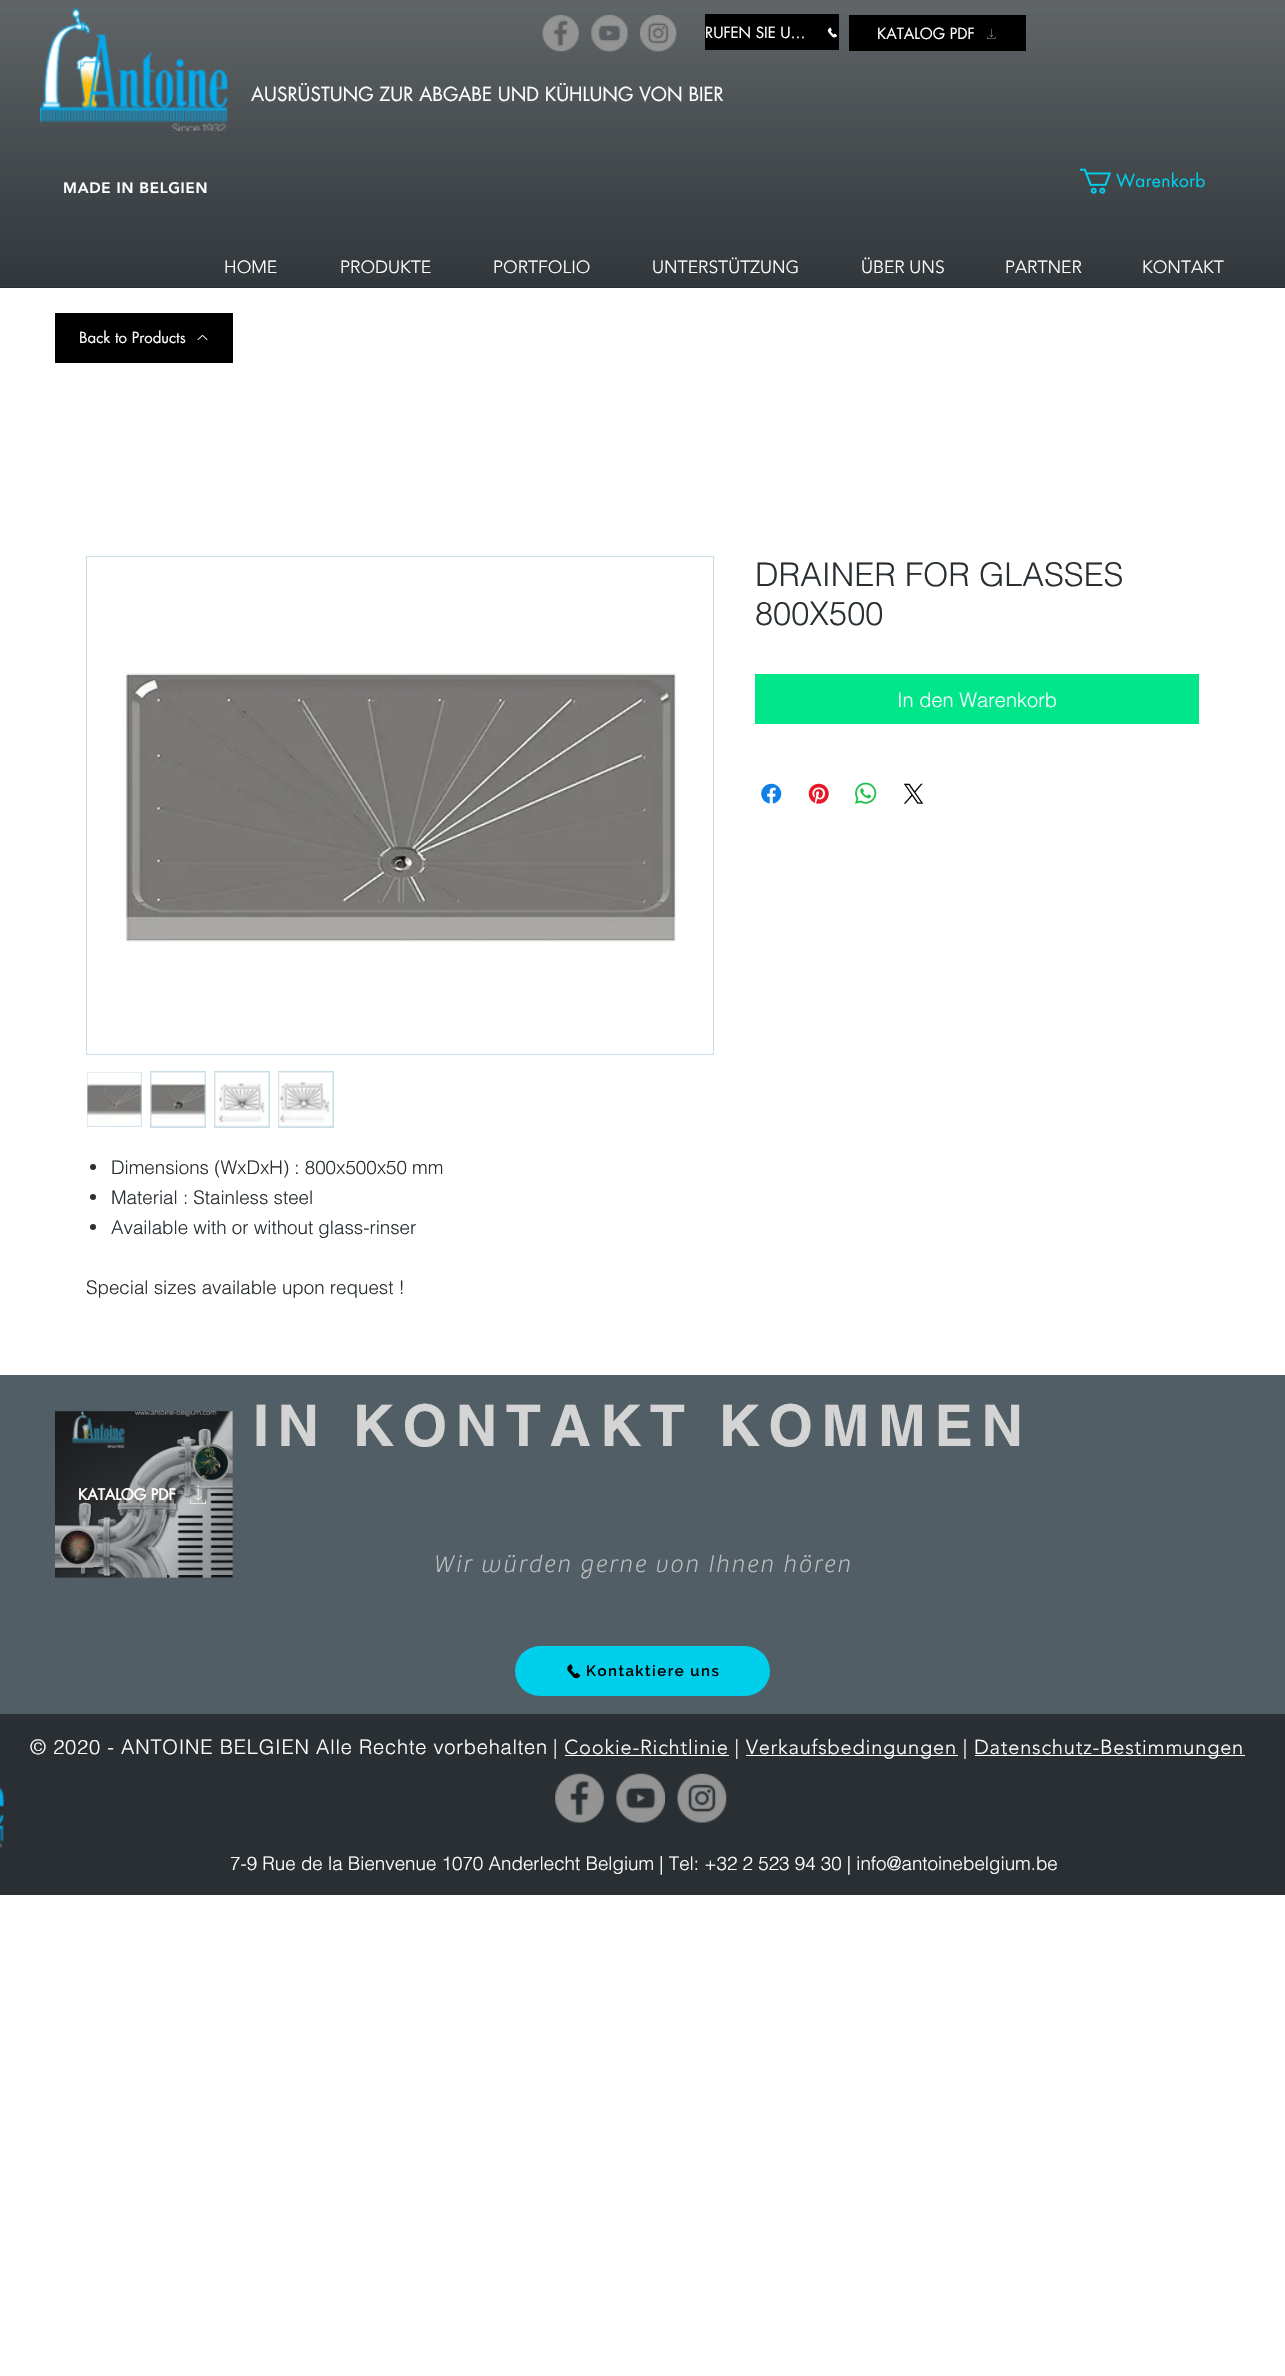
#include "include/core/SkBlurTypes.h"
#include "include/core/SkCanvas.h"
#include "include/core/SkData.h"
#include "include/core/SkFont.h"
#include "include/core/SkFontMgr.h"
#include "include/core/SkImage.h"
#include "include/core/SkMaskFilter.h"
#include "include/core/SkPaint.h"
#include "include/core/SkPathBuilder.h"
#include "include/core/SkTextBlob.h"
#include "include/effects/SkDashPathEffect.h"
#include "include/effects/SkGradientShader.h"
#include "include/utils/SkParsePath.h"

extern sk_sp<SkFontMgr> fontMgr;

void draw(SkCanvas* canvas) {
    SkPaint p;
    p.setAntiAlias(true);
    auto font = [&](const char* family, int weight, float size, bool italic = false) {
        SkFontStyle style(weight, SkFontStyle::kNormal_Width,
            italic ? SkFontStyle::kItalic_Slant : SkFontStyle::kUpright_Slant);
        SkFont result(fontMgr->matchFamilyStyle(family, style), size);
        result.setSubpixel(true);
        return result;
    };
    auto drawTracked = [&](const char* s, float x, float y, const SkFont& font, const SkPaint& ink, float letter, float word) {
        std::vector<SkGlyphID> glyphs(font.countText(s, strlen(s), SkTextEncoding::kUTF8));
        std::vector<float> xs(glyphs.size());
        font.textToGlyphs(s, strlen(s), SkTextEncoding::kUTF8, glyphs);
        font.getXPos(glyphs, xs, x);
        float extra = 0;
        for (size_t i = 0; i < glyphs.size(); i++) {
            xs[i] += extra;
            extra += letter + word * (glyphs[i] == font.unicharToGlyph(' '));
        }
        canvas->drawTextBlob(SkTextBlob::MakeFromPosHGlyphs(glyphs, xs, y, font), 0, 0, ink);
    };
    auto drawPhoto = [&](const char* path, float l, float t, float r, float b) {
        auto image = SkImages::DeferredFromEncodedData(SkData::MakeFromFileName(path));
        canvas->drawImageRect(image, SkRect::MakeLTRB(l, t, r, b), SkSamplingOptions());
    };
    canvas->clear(0xFFFFFFFF);
    p.setColor(0xFF292F33);
    canvas->drawRect(SkRect::MakeLTRB(0, 0, 1285, 288), p);
    drawPhoto("media/1.png", 0, 0, 1285, 287);
    drawPhoto("media/2.png", 40, 8, 228, 131);
    drawPhoto("media/3.png", 542, 15, 579, 52);
    drawPhoto("media/4.png", 591, 15, 628, 52);
    drawPhoto("media/5.png", 640, 15, 677, 52);
    p.setColor(0xFF000000);
    canvas->drawRect(SkRect::MakeLTRB(705, 14, 839, 50), p);
    auto font1 = font("futura", 400, 15);
    p.setColor(0xFFFFFFFF);
    canvas->drawString("RUFEN SIE U…", 705, 38, font1, p);
    drawPhoto("media/6.png", 827, 27, 838, 38);
    p.setColor(0xFF000000);
    canvas->drawRect(SkRect::MakeLTRB(849, 15, 1026, 51), p);
    p.setColor(0xFFFFFFFF);
    canvas->drawString("KATALOG PDF", 877, 39, font1, p);
    drawPhoto("media/7.png", 987, 28, 996, 39);
    auto font2 = font("futura", 400, 18.75f);
    canvas->drawString("AUSRÜSTUNG ZUR ABGABE UND KÜHLUNG VON BIER", 251, 101, font2, p);
    auto font3 = font("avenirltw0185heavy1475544", 900, 15);
    drawTracked("MADE IN BELGIEN", 63, 193, font3, p, 0.75f, 0);
    drawPhoto("media/8.png", 1080, 168, 1111, 194);
    auto font4 = font("futura", 400, 17.5f);
    p.setColor(0xFF00CFEB);
    drawTracked("Warenkorb", 1116, 187, font4, p, 0.25f, 0);
    auto font5 = font("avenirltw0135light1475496", 300, 17.5f);
    p.setColor(0xFFFFFFFF);
    {
        const struct { const char* s; float x, y; } items[] = {
            {"HOME", 224, 273},
            {"PRODUKTE", 340, 273},
            {"PORTFOLIO", 493, 273},
            {"UNTERSTÜTZUNG", 652, 273},
            {"ÜBER UNS", 861, 273},
            {"PARTNER", 1005, 273},
            {"KONTAKT", 1142, 273},
        };
        for (auto [s, x, y] : items) {
            canvas->drawString(s, x, y, font5, p);
        }
    }
    p.setColor(0xFF000000);
    canvas->drawRect(SkRect::MakeLTRB(55, 313, 233, 363), p);
    p.setColor(0xFFFFFFFF);
    canvas->drawString("Back to Products", 79, 343, font1, p);
    drawPhoto("media/9.png", 197, 334, 208, 341);
    auto font6 = font("helvetica", 300, 32.5f);
    p.setColor(0xFF292F33);
    canvas->drawString("DRAINER FOR GLASSES", 755, 586, font6, p);
    canvas->drawString("800X500", 755, 625, font6, p);
    p.setColor(0xFF00E689);
    canvas->drawRect(SkRect::MakeLTRB(755, 674, 1199, 724), p);
    auto font7 = font("helvetica", 300, 20);
    p.setColor(0xFFF0FAFF);
    canvas->drawString("In den Warenkorb", 897, 707, font7, p);
    drawPhoto("media/10.png", 761, 783, 782, 804);
    drawPhoto("media/11.png", 808, 783, 829, 804);
    drawPhoto("media/12.png", 855, 782, 877, 804);
    drawPhoto("media/13.png", 903, 783, 924, 804);
    p.setStyle(SkPaint::kStroke_Style);
    p.setStrokeWidth(1);
    p.setColor(0xFFCADDE6);
    canvas->drawRect(SkRect::MakeLTRB(86.5f, 556.5f, 713.5f, 1054.5f), p);
    drawPhoto("media/14.png", 123, 672, 678, 942);
    p.setStyle(SkPaint::kFill_Style);
    canvas->drawRect(SkRect::MakeLTRB(87, 1072, 142, 1127), p);
    drawPhoto("media/15.png", 87, 1072, 142, 1127);
    canvas->drawRect(SkRect::MakeLTRB(150, 1071, 206, 1128), p);
    drawPhoto("media/16.png", 150, 1072, 206, 1127);
    canvas->drawRect(SkRect::MakeLTRB(214, 1071, 270, 1128), p);
    drawPhoto("media/17.png", 214, 1072, 269, 1127);
    canvas->drawRect(SkRect::MakeLTRB(278, 1071, 334, 1128), p);
    drawPhoto("media/18.png", 278, 1072, 333, 1127);
    p.setColor(0xFF292F33);
    canvas->drawCircle(93, 1167, 3, p);
    auto font8 = font("helvetica", 300, 18.75f);
    canvas->drawString("Dimensions (WxDxH) : 800x500x50 mm", 111, 1174, font8, p);
    canvas->drawCircle(93, 1197, 3, p);
    canvas->drawString("Material : Stainless steel", 111, 1204, font8, p);
    canvas->drawCircle(93, 1227, 3, p);
    canvas->drawString("Available with or without glass-rinser", 111, 1234, font8, p);
    canvas->drawString("Special sizes available upon request !", 86, 1294, font8, p);
    p.setColor(0xFF515E65);
    canvas->drawRect(SkRect::MakeLTRB(0, 1375, 1285, 1714), p);
    auto font9 = font("helvetica", 700, 57.5f);
    p.setColor(0xFFD4D4D4);
    drawTracked("IN KONTAKT KOMMEN", 253, 1446, font9, p, 8.6f, 0);
    drawPhoto("media/19.png", 55, 1411, 233, 1578);
    auto font10 = font("futura", 700, 15);
    p.setColor(0xFFFFFFFF);
    canvas->drawString("KATALOG PDF", 78, 1500, font10, p);
    drawPhoto("media/20.png", 190, 1484, 206, 1504);
    auto font11 = font("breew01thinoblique", 100, 25);
    p.setColor(0xFFBFBFBF);
    drawTracked("Wir würden gerne von Ihnen hören", 433, 1572, font11, p, 2, 0);
    p.setColor(0xFF00CFEB);
    canvas->drawRoundRect(SkRect::MakeLTRB(515, 1646, 770, 1696), 25, 25, p);
    drawPhoto("media/21.png", 567, 1664, 581, 1679);
    auto font12 = font("Raleway", 600, 15);
    p.setColor(0xFF000000);
    drawTracked("Kontaktiere uns", 586, 1676, font12, p, 1.5f, 0);
    p.setColor(0xFF292F33);
    canvas->drawRect(SkRect::MakeLTRB(0, 1714, 1285, 1895), p);
    p.setColor(0xFFFFFFFF);
    drawTracked("© 2020 - ANTOINE BELGIEN Alle Rechte vorbehalten", 30, 1754, font7, p, 0.8f, 0);
    auto font13 = font("avenirltw0135light1475496", 300, 20);
    drawTracked("| Cookie-Richtlinie |", 553, 1754, font13, p, 0.8f, 0);
    canvas->drawRect(SkRect::MakeLTRB(565, 1755, 729, 1756), p);
    canvas->drawRect(SkRect::MakeLTRB(746, 1755, 958, 1756), p);
    drawTracked("Verkaufsbedingungen |", 746, 1754, font13, p, 0.8f, 0);
    canvas->drawRect(SkRect::MakeLTRB(975, 1755, 1245, 1756), p);
    drawTracked("Datenschutz-Bestimmungen", 974, 1754, font13, p, 0.8f, 0);
    drawPhoto("media/22.png", 0, 1787, 4, 1848);
    drawPhoto("media/23.png", 555, 1773, 604, 1823);
    drawPhoto("media/24.png", 616, 1773, 665, 1823);
    drawPhoto("media/25.png", 677, 1773, 727, 1823);
    canvas->drawString("7-9 Rue de la Bienvenue 1070 Anderlecht Belgium | Tel: +32 2 523 94 30 | info@antoinebelgium.be", 230, 1870, font8, p);
}
